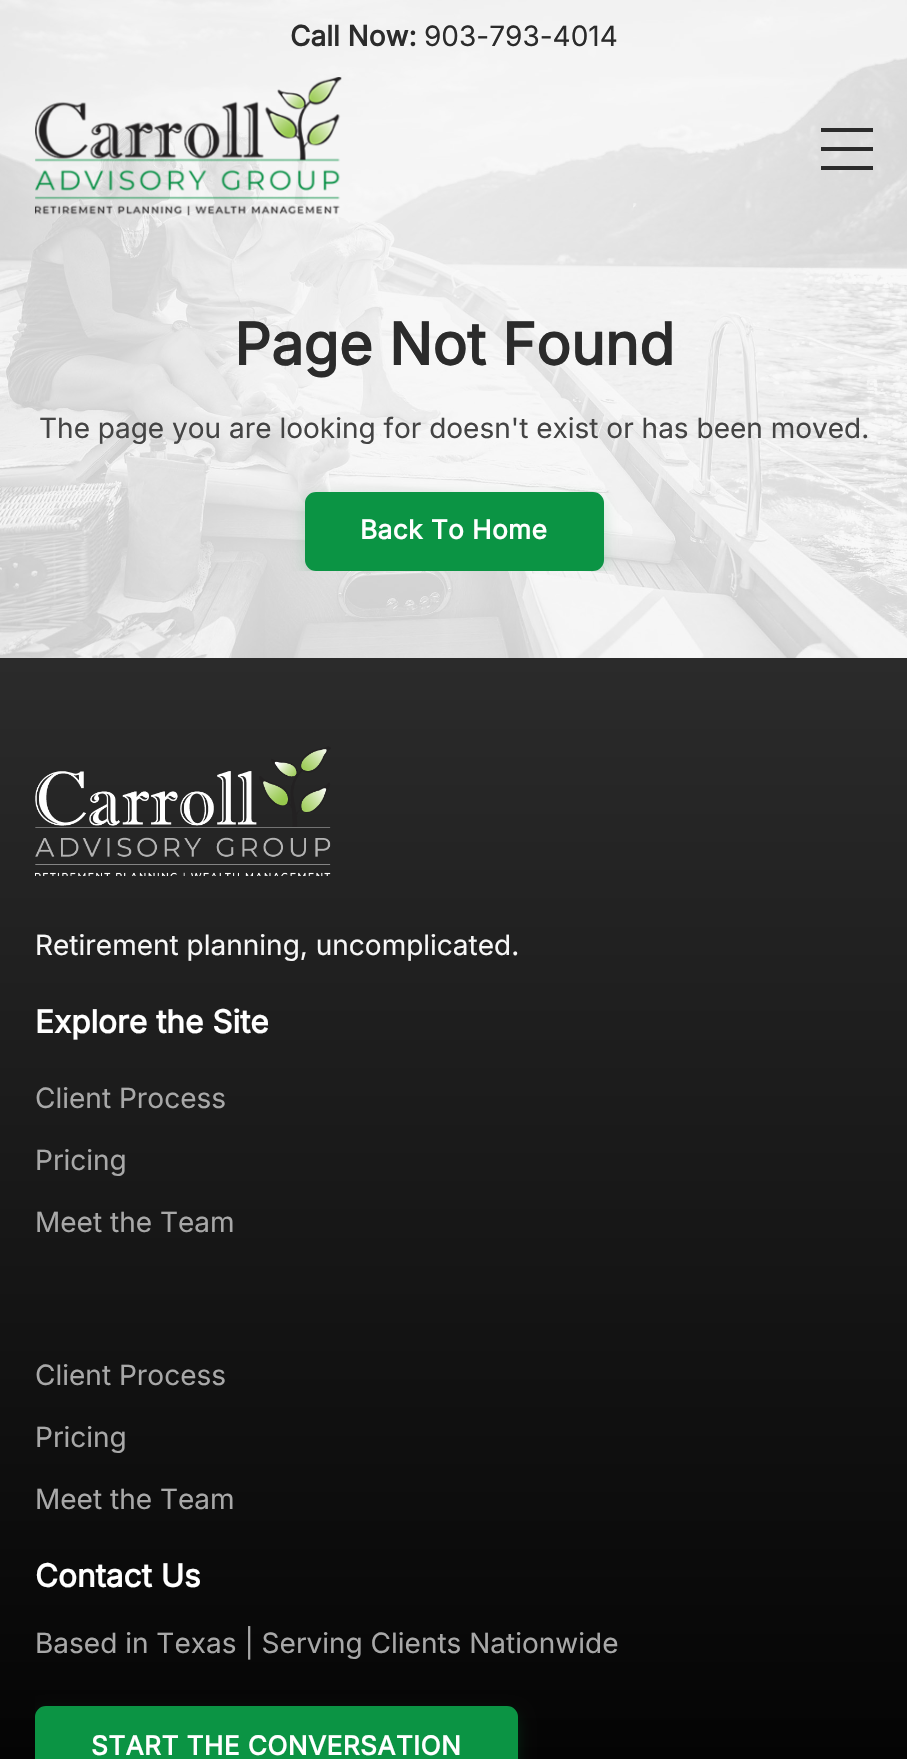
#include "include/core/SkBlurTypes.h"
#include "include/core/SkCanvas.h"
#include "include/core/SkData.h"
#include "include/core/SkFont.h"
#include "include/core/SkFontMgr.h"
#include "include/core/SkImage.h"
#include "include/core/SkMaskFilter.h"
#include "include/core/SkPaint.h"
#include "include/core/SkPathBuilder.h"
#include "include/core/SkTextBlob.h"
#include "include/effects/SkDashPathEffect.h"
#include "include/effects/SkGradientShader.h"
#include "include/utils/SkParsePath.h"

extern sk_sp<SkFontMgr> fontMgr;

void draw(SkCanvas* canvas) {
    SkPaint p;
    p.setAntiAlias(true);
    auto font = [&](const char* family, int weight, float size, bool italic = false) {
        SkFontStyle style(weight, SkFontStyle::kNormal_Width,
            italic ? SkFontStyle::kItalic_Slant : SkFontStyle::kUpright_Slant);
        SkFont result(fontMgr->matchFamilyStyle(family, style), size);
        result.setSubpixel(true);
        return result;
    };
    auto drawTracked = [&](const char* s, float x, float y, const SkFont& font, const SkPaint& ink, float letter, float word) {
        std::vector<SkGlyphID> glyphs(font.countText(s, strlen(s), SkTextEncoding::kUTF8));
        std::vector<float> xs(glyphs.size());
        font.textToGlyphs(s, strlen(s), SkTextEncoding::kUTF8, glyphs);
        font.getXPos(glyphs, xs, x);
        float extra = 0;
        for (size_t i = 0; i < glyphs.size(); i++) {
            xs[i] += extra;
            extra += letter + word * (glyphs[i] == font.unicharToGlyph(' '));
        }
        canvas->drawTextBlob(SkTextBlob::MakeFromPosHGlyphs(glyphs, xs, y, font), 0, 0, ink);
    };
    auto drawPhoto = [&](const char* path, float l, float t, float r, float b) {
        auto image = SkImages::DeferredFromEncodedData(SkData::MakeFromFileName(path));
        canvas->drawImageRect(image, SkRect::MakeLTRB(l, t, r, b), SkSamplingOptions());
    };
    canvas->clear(0xFFFFFFFF);
    drawPhoto("media/2.png", 0, 0, 907, 658);
    auto font1 = font("Inter", 700, 28);
    p.setColor(0xFF2B2B2B);
    canvas->drawString("Call Now:", 290, 46, font1, p);
    auto font2 = font("Inter", 400, 28);
    canvas->drawString("903-793-4014", 424, 46, font2, p);
    drawPhoto("media/1.png", 35, 77, 342, 216);
    {
        const struct { float l, t, r, b; SkColor color; } items[] = {
            {821, 128, 873, 132, 0xFF2B2B2B},
            {821, 147, 873, 151, 0xFF2B2B2B},
            {821, 166, 873, 170, 0xFF2B2B2B},
        };
        for (auto [l, t, r, b, color] : items) {
            p.setColor(color);
            canvas->drawRect(SkRect::MakeLTRB(l, t, r, b), p);
        }
    }
    auto font3 = font("Inter", 700, 57.75f);
    canvas->drawString("Page Not Found", 234, 365, font3, p);
    p.setColor(0xFF444444);
    canvas->drawString("The page you are looking for doesn't exist or has been moved.", 39, 438, font2, p);
    canvas->save();
    canvas->clipPath(SkPathBuilder().moveTo(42, 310).lineTo(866, 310).cubicTo(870, 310, 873, 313, 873, 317).lineTo(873, 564).cubicTo(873, 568, 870, 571, 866, 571).lineTo(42, 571).cubicTo(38, 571, 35, 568, 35, 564).lineTo(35, 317).cubicTo(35, 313, 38, 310, 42, 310).close().detach(), true);
    p.setColor(0x330B9444);
    p.setMaskFilter(SkMaskFilter::MakeBlur(kNormal_SkBlurStyle, 8));
    canvas->drawRoundRect(SkRect::MakeLTRB(305, 499, 604, 578), 11, 11, p);
    p.setMaskFilter(nullptr);
    canvas->restore();
    p.setColor(0xFF0B9444);
    canvas->drawRoundRect(SkRect::MakeLTRB(307, 494, 602, 569), 9, 9, p);
    p.setStyle(SkPaint::kStroke_Style);
    p.setStrokeWidth(4);
    canvas->drawRoundRect(SkRect::MakeLTRB(307, 494, 602, 569), 9, 9, p);
    auto font4 = font("Inter", 700, 26.25f);
    p.setStyle(SkPaint::kFill_Style);
    p.setColor(0xFFFFFFFF);
    drawTracked("Back To Home", 360, 539, font4, p, 0.4f, 0);
    {
        const SkColor colors[] = {0xFF2B2B2B, 0xFF000000};
        const float stops[] = {0, 1};
        const SkPoint ends[] = {{454, 658}, {454, 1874}};
        p.setShader(SkGradientShader::MakeLinear(ends, colors, stops, 2, SkTileMode::kClamp));
        p.setAlpha(255);
    }
    canvas->drawRect(SkRect::MakeLTRB(0, 658, 907, 1759), p);
    drawPhoto("media/3.png", 35, 746, 331, 876);
    p.setShader(nullptr);
    p.setColor(0xFFF7F7F7);
    canvas->drawString("Retirement planning, uncomplicated.", 35, 955, font2, p);
    auto font5 = font("Inter", 700, 31.5f);
    p.setColor(0xFFFFFFFF);
    canvas->drawString("Explore the Site", 35, 1033, font5, p);
    p.setColor(0xFFA8A8A8);
    {
        const struct { const char* s; float x, y; } items[] = {
            {"Client Process", 35, 1108},
            {"Pricing", 35, 1170},
            {"Meet the Team", 35, 1232},
            {"Client Process", 35, 1385},
            {"Pricing", 35, 1447},
            {"Meet the Team", 35, 1509},
        };
        for (auto [s, x, y] : items) {
            canvas->drawString(s, x, y, font2, p);
        }
    }
    p.setColor(0xFFFFFFFF);
    canvas->drawString("Contact Us", 35, 1587, font5, p);
    p.setColor(0xFFA8A8A8);
    canvas->drawString("Based in Texas | Serving Clients Nationwide", 35, 1653, font2, p);
    canvas->save();
    canvas->clipPath(SkPathBuilder().moveTo(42, 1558).lineTo(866, 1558).cubicTo(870, 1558, 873, 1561, 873, 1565).lineTo(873, 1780).cubicTo(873, 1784, 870, 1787, 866, 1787).lineTo(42, 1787).cubicTo(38, 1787, 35, 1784, 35, 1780).lineTo(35, 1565).cubicTo(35, 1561, 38, 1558, 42, 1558).close().detach(), true);
    p.setColor(0x330B9444);
    p.setMaskFilter(SkMaskFilter::MakeBlur(kNormal_SkBlurStyle, 8));
    canvas->drawRoundRect(SkRect::MakeLTRB(35, 1713, 518, 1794), 11, 11, p);
    p.setMaskFilter(nullptr);
    canvas->restore();
    p.setColor(0xFF0B9444);
    canvas->drawRoundRect(SkRect::MakeLTRB(37, 1708, 516, 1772), 9, 9, p);
    p.setStyle(SkPaint::kStroke_Style);
    canvas->drawRoundRect(SkRect::MakeLTRB(37, 1708, 516, 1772), 9, 9, p);
    p.setStyle(SkPaint::kFill_Style);
    p.setColor(0xFFFFFFFF);
    drawTracked("START THE CONVERSATION", 91, 1755, font4, p, 0.4f, 0);
}
